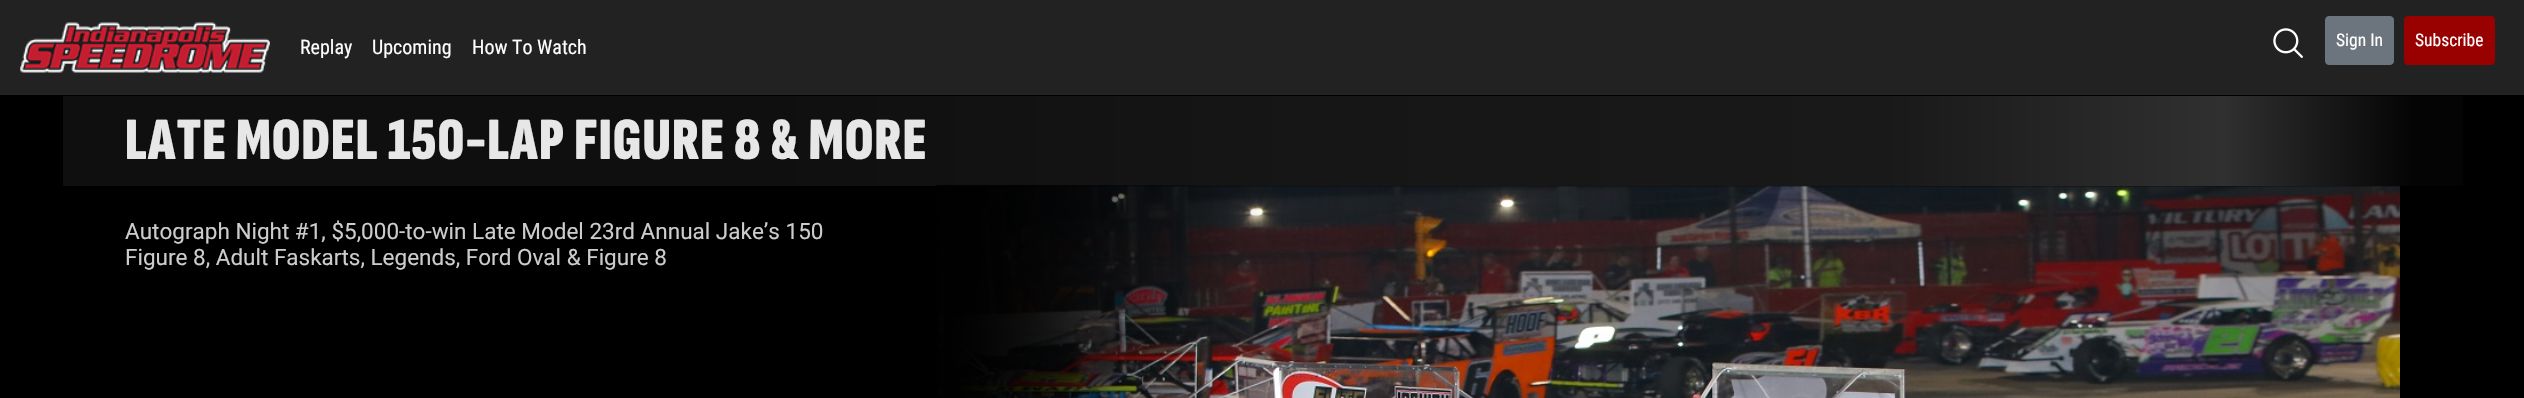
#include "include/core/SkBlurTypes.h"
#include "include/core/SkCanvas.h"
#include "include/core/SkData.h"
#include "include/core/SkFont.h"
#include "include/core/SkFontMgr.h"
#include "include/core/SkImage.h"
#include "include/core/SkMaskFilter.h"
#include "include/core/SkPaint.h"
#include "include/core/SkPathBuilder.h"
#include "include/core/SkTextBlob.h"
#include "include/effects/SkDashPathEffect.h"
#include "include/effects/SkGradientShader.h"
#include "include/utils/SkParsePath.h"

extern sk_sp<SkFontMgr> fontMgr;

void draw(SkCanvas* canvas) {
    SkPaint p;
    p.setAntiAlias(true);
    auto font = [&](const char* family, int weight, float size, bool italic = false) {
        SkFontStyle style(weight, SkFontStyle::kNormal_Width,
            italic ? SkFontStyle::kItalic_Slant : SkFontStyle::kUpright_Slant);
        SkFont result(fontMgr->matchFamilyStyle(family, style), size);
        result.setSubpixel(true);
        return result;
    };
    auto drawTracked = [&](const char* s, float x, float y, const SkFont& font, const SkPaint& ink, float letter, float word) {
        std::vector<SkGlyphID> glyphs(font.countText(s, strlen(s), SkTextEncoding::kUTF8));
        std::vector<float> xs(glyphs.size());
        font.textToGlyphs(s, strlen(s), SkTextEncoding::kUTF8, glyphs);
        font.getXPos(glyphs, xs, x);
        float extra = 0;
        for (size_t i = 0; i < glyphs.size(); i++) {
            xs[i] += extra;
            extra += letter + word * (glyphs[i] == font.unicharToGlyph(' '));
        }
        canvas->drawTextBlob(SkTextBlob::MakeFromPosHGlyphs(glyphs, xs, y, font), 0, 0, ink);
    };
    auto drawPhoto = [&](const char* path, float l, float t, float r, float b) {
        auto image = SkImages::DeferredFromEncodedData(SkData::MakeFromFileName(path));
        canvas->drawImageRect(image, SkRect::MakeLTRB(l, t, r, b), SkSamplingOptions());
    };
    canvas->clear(0xFF000000);
    p.setColor(0xFF222222);
    canvas->drawRect(SkRect::MakeLTRB(0, 0, 2524, 95), p);
    drawPhoto("media/1.png", 20, 22, 270, 73);
    auto font1 = font("Roboto Condensed", 400, 20);
    p.setColor(0xFFFFFFFF);
    {
        const struct { const char* s; float x, y; } items[] = {
            {"Replay", 300, 54},
            {"Upcoming", 372, 54},
            {"How To Watch", 472, 54},
        };
        for (auto [s, x, y] : items) {
            canvas->drawString(s, x, y, font1, p);
        }
    }
    drawPhoto("media/2.png", 2273, 28, 2303, 58);
    p.setColor(0xFF6C757D);
    canvas->drawRoundRect(SkRect::MakeLTRB(2325.5f, 16.5f, 2393.5f, 64.5f), 3.5f, 3.5f, p);
    p.setStyle(SkPaint::kStroke_Style);
    p.setStrokeWidth(1);
    canvas->drawRoundRect(SkRect::MakeLTRB(2325.5f, 16.5f, 2393.5f, 64.5f), 3.5f, 3.5f, p);
    auto font2 = font("Roboto Condensed", 400, 17.5f);
    p.setStyle(SkPaint::kFill_Style);
    p.setColor(0xFFFFFFFF);
    canvas->drawString("Sign In", 2336, 46, font2, p);
    p.setColor(0xFF990000);
    canvas->drawRoundRect(SkRect::MakeLTRB(2404.5f, 16.5f, 2494.5f, 64.5f), 3.5f, 3.5f, p);
    p.setStyle(SkPaint::kStroke_Style);
    canvas->drawRoundRect(SkRect::MakeLTRB(2404.5f, 16.5f, 2494.5f, 64.5f), 3.5f, 3.5f, p);
    p.setStyle(SkPaint::kFill_Style);
    p.setColor(0xFFFFFFFF);
    canvas->drawString("Subscribe", 2415, 46, font2, p);
    {
        const SkColor colors[] = {0xFF0F0F0F, 0xFF161616, 0xFF191919, 0xFF303030, 0xFF040404};
        const float stops[] = {0.29f, 0.52f, 0.76f, 0.9f, 0.98f};
        const SkPoint ends[] = {{63, 141}, {2463, 141}};
        p.setShader(SkGradientShader::MakeLinear(ends, colors, stops, 5, SkTileMode::kClamp));
        p.setAlpha(255);
    }
    canvas->drawRect(SkRect::MakeLTRB(63, 96, 2463, 186), p);
    auto font3 = font("Sofia Sans Extra Condensed", 900, 60);
    p.setShader(nullptr);
    p.setColor(0xFFE7E7E7);
    drawTracked("LATE MODEL 150-LAP FIGURE 8 & MORE", 125, 159, font3, p, 1.2f, 0);
    auto font4 = font("Roboto", 400, 22.5f);
    p.setColor(0xFFCCCCCC);
    canvas->drawString("Autograph Night #1, $5,000-to-win Late Model 23rd Annual Jake’s 150", 125, 239, font4, p);
    canvas->drawString("Figure 8, Adult Faskarts, Legends, Ford Oval & Figure 8", 125, 265, font4, p);
    drawPhoto("media/3.png", 937, 186, 2400, 398);
    {
        const SkColor colors[] = {0xFF000000, 0xB3000000, 0x80000000, 0x40000000, 0x00000000, 0x00000000};
        const float stops[] = {0, 0.04f, 0.08f, 0.12f, 0.2f, 1};
        const SkPoint ends[] = {{936, 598}, {2401, 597}};
        p.setShader(SkGradientShader::MakeLinear(ends, colors, stops, 6, SkTileMode::kClamp));
        p.setAlpha(255);
    }
    canvas->drawRect(SkRect::MakeLTRB(936, 185, 1219, 398), p);
    {
        const SkColor colors[] = {0xFF000000, 0xBF000000, 0x80000000, 0x00000000, 0x00000000};
        const float stops[] = {0, 0.05f, 0.1f, 0.2f, 1};
        const SkPoint ends[] = {{882, 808}, {2455, 387}};
        p.setShader(SkGradientShader::MakeLinear(ends, colors, stops, 5, SkTileMode::kClamp));
        p.setAlpha(255);
    }
    canvas->drawRect(SkRect::MakeLTRB(942, 208, 1102, 398), p);
    {
        const SkColor colors[] = {0xFF000000, 0xBF000000, 0x80000000, 0x00000000, 0x00000000};
        const float stops[] = {0, 0.05f, 0.1f, 0.2f, 1};
        const SkPoint ends[] = {{882, 387}, {2455, 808}};
        p.setShader(SkGradientShader::MakeLinear(ends, colors, stops, 5, SkTileMode::kClamp));
        p.setAlpha(255);
    }
    canvas->drawRect(SkRect::MakeLTRB(944, 185, 1262, 398), p);
}
